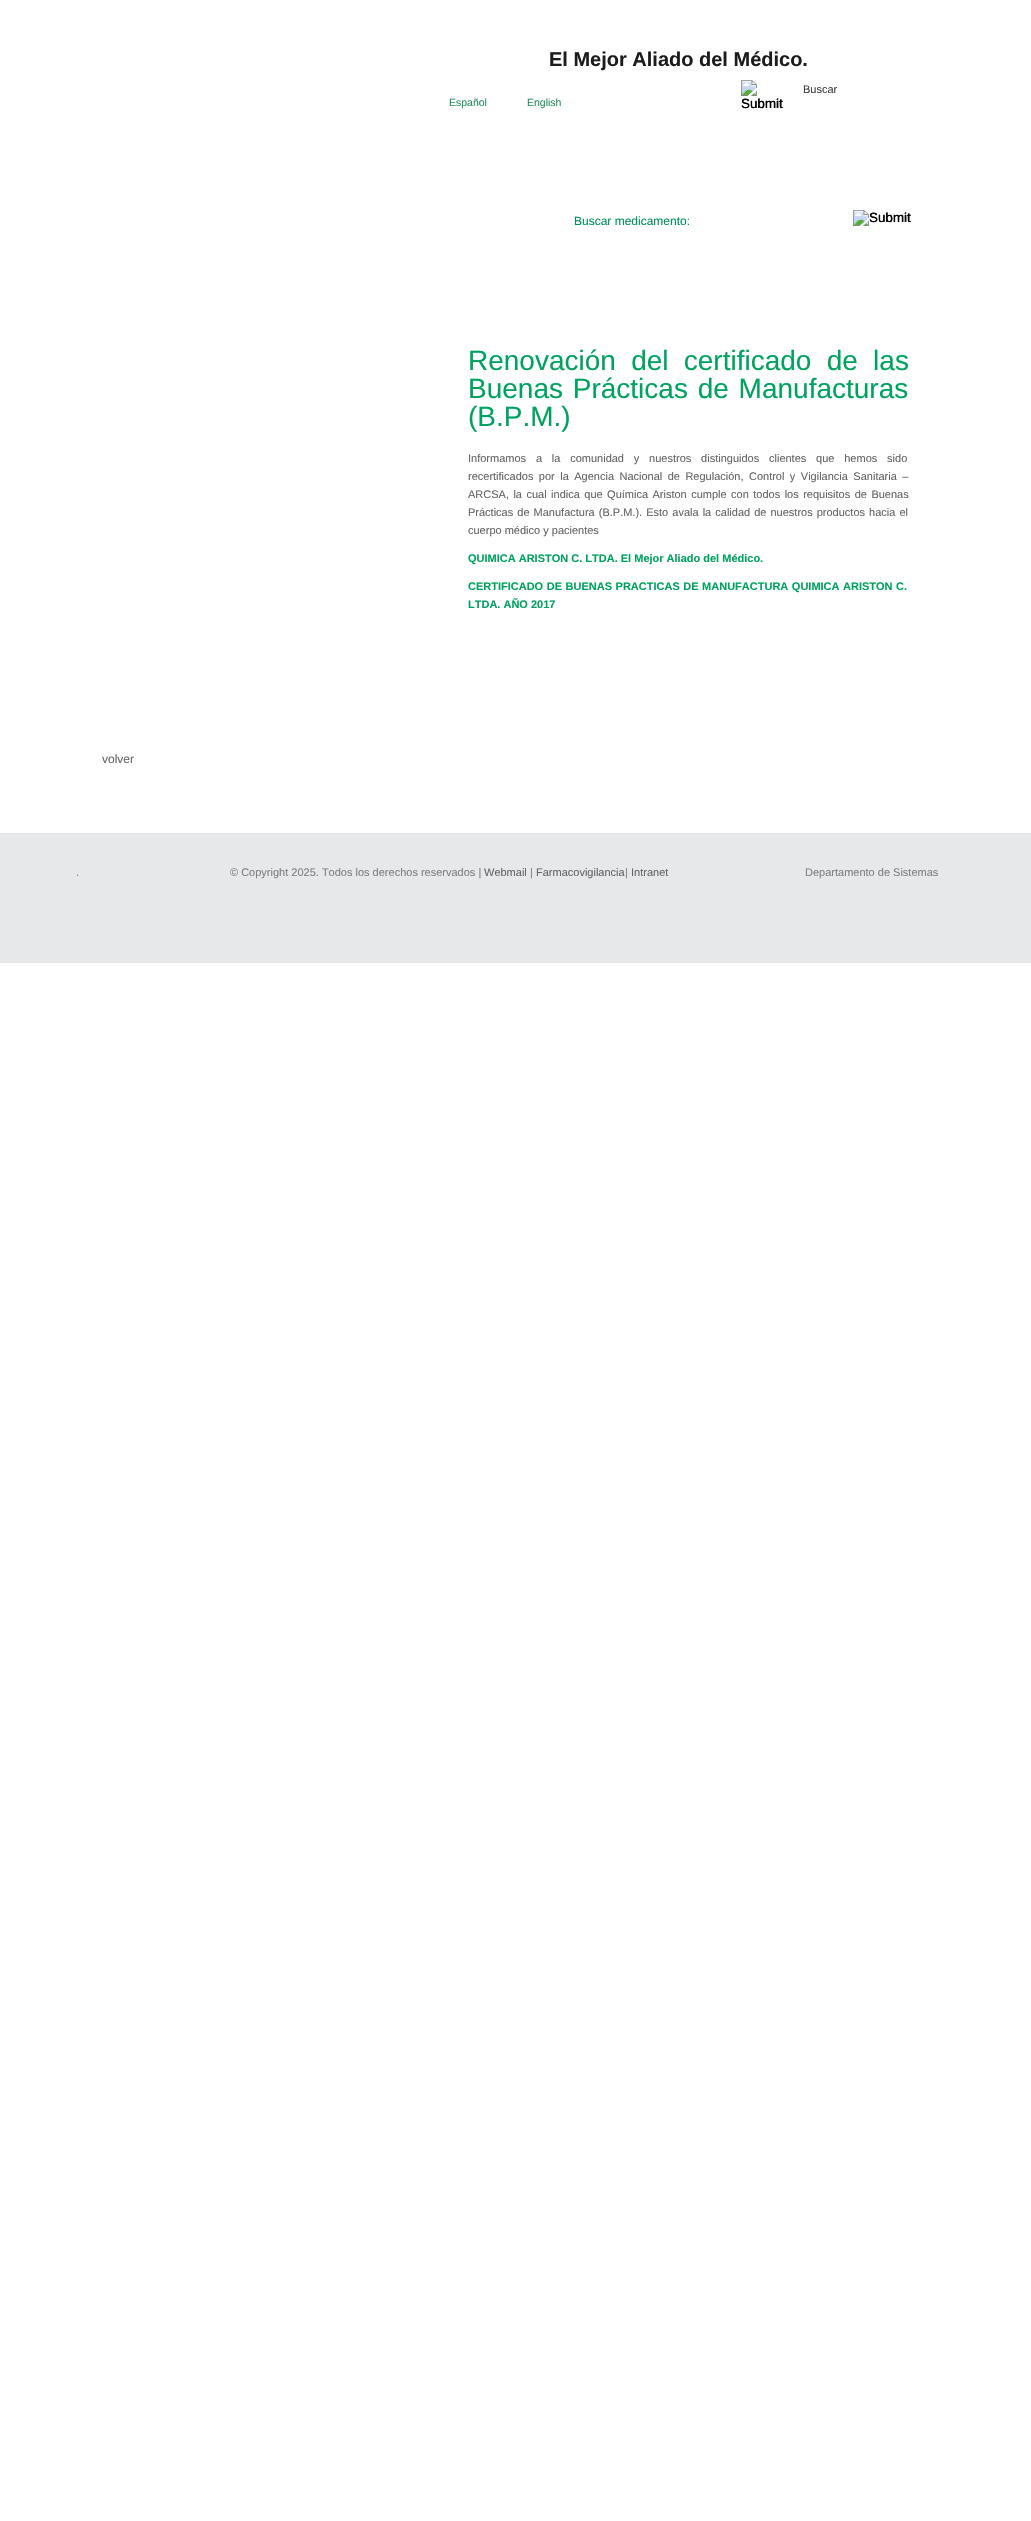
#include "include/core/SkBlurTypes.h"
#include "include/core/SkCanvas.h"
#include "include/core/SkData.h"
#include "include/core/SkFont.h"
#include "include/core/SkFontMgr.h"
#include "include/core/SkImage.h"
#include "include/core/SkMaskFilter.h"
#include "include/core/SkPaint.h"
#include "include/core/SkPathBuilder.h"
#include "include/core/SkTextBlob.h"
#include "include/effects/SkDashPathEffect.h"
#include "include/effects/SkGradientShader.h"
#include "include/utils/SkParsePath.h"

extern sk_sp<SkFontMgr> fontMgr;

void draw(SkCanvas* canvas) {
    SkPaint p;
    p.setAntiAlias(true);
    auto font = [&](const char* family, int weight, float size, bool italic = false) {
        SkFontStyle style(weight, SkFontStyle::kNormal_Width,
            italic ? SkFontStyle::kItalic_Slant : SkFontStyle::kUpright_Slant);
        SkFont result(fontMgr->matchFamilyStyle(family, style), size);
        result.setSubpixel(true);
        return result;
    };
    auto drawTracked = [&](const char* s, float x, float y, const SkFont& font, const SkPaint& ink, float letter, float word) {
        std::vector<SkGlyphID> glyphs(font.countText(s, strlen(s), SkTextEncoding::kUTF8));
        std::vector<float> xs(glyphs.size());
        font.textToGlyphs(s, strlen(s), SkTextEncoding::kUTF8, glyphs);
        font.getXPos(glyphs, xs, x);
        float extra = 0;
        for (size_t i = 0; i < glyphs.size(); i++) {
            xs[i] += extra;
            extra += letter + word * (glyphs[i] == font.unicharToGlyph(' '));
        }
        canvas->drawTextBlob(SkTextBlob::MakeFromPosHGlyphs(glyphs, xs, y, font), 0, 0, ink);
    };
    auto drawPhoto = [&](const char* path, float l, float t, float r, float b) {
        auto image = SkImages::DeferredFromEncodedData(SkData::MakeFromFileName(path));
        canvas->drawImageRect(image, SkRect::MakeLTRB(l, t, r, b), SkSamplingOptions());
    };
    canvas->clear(0xFFFFFFFF);
    auto font1 = font("Liberation Sans", 700, 20);
    p.setColor(0xFF1C1C1C);
    canvas->drawString("El Mejor Aliado del Médico.", 549, 66, font1, p);
    auto font2 = font("Liberation Sans", 400, 10.5f);
    p.setColor(0xFF258C5F);
    canvas->drawString("Español", 449, 106, font2, p);
    canvas->drawString("English", 527, 106, font2, p);
    auto font3 = font("Liberation Sans", 400, 11);
    p.setColor(0xFF414143);
    canvas->drawString("Buscar", 803, 93, font3, p);
    drawPhoto("media/1.png", 741, 80, 783, 108);
    auto font4 = font("Liberation Sans", 400, 13.5f);
    p.setColor(0xFF000000);
    canvas->drawString("Submit", 741, 108, font4, p);
    auto font5 = font("Liberation Sans", 400, 12);
    p.setColor(0xFF009057);
    canvas->drawString("Buscar medicamento:", 574, 225, font5, p);
    drawPhoto("media/2.png", 853, 210, 911, 226);
    p.setColor(0xFF000000);
    canvas->drawString("Submit", 869, 222, font4, p);
    auto font6 = font("Liberation Sans", 400, 28);
    p.setColor(0xFF00A25F);
    drawTracked("Renovación del certificado de las", 468, 370, font6, p, 0, 7.5f);
    drawTracked("Buenas Prácticas de Manufacturas", 468, 398, font6, p, 0, 2);
    canvas->drawString("(B.P.M.)", 468, 426, font6, p);
    p.setColor(0xFF646464);
    drawTracked("Informamos a la comunidad y nuestros distinguidos clientes que hemos sido", 468, 462, font3, p, 0, 6.75f);
    drawTracked("recertificados por la Agencia Nacional de Regulación, Control y Vigilancia Sanitaria –", 468, 480, font3, p, 0, 2.4f);
    drawTracked("ARCSA, la cual indica que Química Ariston cumple con todos los requisitos de Buenas", 468, 498, font3, p, 0, 1.4f);
    drawTracked("Prácticas de Manufactura (B.P.M.). Esto avala la calidad de nuestros productos hacia el", 468, 516, font3, p, 0, 1);
    canvas->drawString("cuerpo médico y pacientes", 468, 534, font3, p);
    auto font7 = font("Liberation Sans", 700, 11);
    p.setColor(0xFF00A25F);
    canvas->drawString("QUIMICA ARISTON C. LTDA. El Mejor Aliado del Médico.", 468, 562, font7, p);
    drawTracked("CERTIFICADO DE BUENAS PRACTICAS DE MANUFACTURA QUIMICA ARISTON C.", 468, 590, font7, p, 0, 0.5f);
    canvas->drawString("LTDA. AÑO 2017", 468, 608, font7, p);
    p.setColor(0xFF646464);
    canvas->drawString("volver", 102, 763, font5, p);
    p.setColor(0xFFE7E8EA);
    canvas->drawRect(SkRect::MakeLTRB(0, 833, 1031, 963), p);
    p.setColor(0xFF807F7F);
    canvas->drawString(".", 76, 876, font3, p);
    canvas->drawString("© Copyright 2025. Todos los derechos reservados |", 230, 876, font3, p);
    p.setColor(0xFF646464);
    canvas->drawString("Webmail", 484, 876, font3, p);
    p.setColor(0xFF807F7F);
    canvas->drawString("|", 530, 876, font3, p);
    p.setColor(0xFF646464);
    canvas->drawString("Farmacovigilancia", 536, 876, font3, p);
    p.setColor(0xFF807F7F);
    canvas->drawString("|", 625, 876, font3, p);
    p.setColor(0xFF646464);
    canvas->drawString("Intranet", 631, 876, font3, p);
    p.setColor(0xFF807F7F);
    canvas->drawString("Departamento de Sistemas", 805, 876, font3, p);
}
